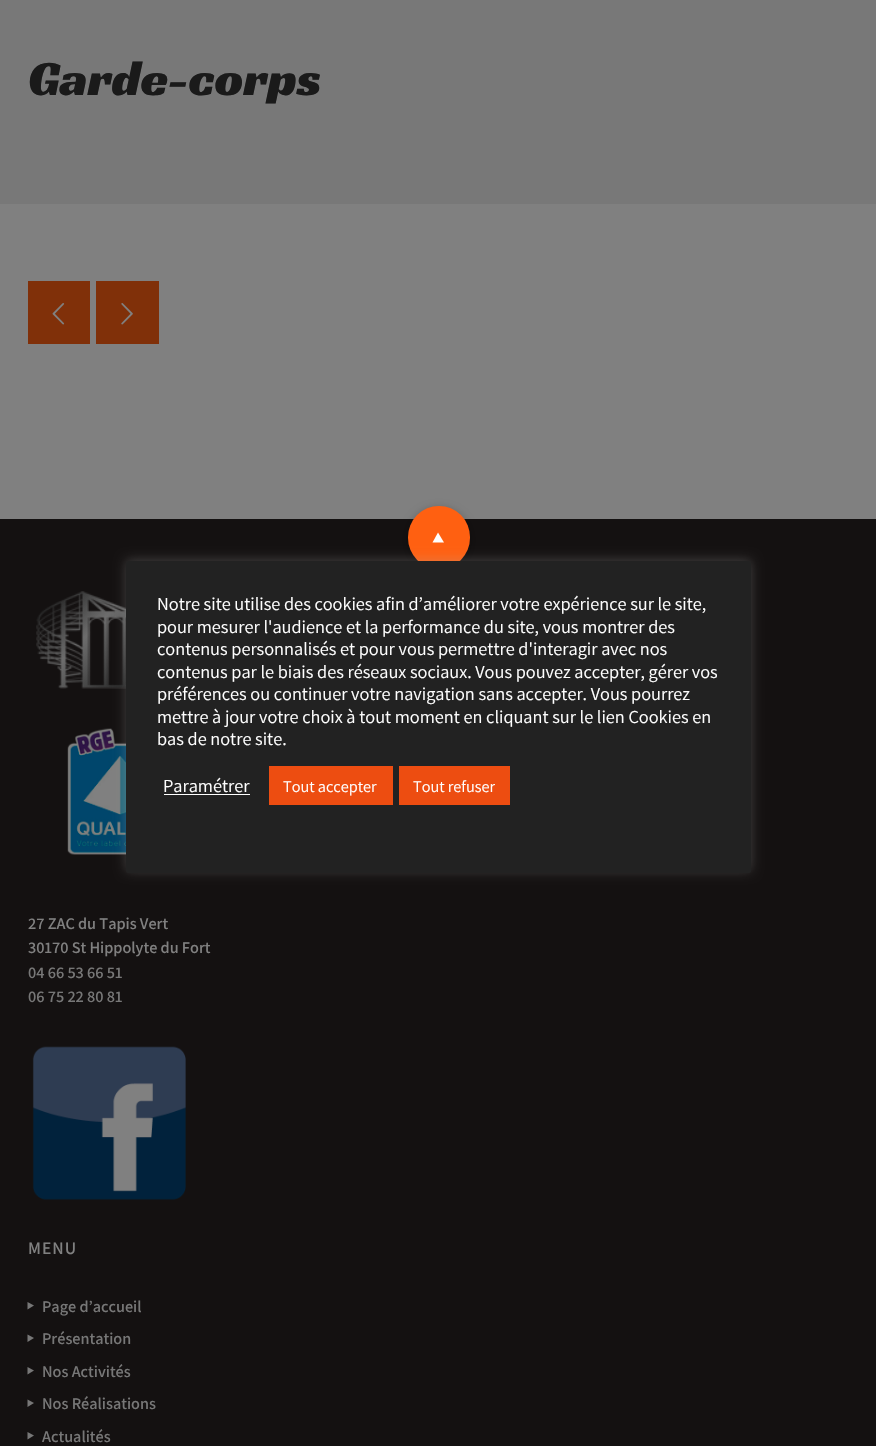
#include "include/core/SkBlurTypes.h"
#include "include/core/SkCanvas.h"
#include "include/core/SkData.h"
#include "include/core/SkFont.h"
#include "include/core/SkFontMgr.h"
#include "include/core/SkImage.h"
#include "include/core/SkMaskFilter.h"
#include "include/core/SkPaint.h"
#include "include/core/SkPathBuilder.h"
#include "include/core/SkTextBlob.h"
#include "include/effects/SkDashPathEffect.h"
#include "include/effects/SkGradientShader.h"
#include "include/utils/SkParsePath.h"

extern sk_sp<SkFontMgr> fontMgr;

void draw(SkCanvas* canvas) {
    SkPaint p;
    p.setAntiAlias(true);
    auto font = [&](const char* family, int weight, float size, bool italic = false) {
        SkFontStyle style(weight, SkFontStyle::kNormal_Width,
            italic ? SkFontStyle::kItalic_Slant : SkFontStyle::kUpright_Slant);
        SkFont result(fontMgr->matchFamilyStyle(family, style), size);
        result.setSubpixel(true);
        return result;
    };
    auto drawTracked = [&](const char* s, float x, float y, const SkFont& font, const SkPaint& ink, float letter, float word) {
        std::vector<SkGlyphID> glyphs(font.countText(s, strlen(s), SkTextEncoding::kUTF8));
        std::vector<float> xs(glyphs.size());
        font.textToGlyphs(s, strlen(s), SkTextEncoding::kUTF8, glyphs);
        font.getXPos(glyphs, xs, x);
        float extra = 0;
        for (size_t i = 0; i < glyphs.size(); i++) {
            xs[i] += extra;
            extra += letter + word * (glyphs[i] == font.unicharToGlyph(' '));
        }
        canvas->drawTextBlob(SkTextBlob::MakeFromPosHGlyphs(glyphs, xs, y, font), 0, 0, ink);
    };
    auto drawPhoto = [&](const char* path, float l, float t, float r, float b) {
        auto image = SkImages::DeferredFromEncodedData(SkData::MakeFromFileName(path));
        canvas->drawImageRect(image, SkRect::MakeLTRB(l, t, r, b), SkSamplingOptions());
    };
    canvas->clear(0xFF808080);
    p.setColor(0xFF787878);
    canvas->drawRect(SkRect::MakeLTRB(0, 0, 876, 204), p);
    auto font1 = font("Racing Sans One", 400, 50);
    p.setColor(0xFF1A1A1A);
    canvas->drawString("Garde-corps", 28, 95, font1, p);
    p.setColor(0xFF803009);
    canvas->drawRect(SkRect::MakeLTRB(28, 281, 90, 344), p);
    drawPhoto("media/1.png", 52, 303, 65, 325);
    canvas->drawRect(SkRect::MakeLTRB(96, 281, 159, 344), p);
    drawPhoto("media/2.png", 121, 303, 133, 325);
    p.setColor(0xFF141111);
    canvas->drawRect(SkRect::MakeLTRB(0, 519, 876, 1446), p);
    p.setColor(0x26000000);
    p.setMaskFilter(SkMaskFilter::MakeBlur(kNormal_SkBlurStyle, 3));
    canvas->drawRoundRect(SkRect::MakeLTRB(405, 506, 473, 574), 34, 34, p);
    p.setMaskFilter(nullptr);
    p.setColor(0xFFFF6011);
    canvas->drawRoundRect(SkRect::MakeLTRB(408, 506, 470, 569), 31, 31, p);
    p.setColor(0xFFFFFFFF);
    canvas->drawPath(SkPathBuilder().moveTo(432.5f, 542.5f).lineTo(438, 532.5f).lineTo(444, 542.5f).close().detach(), p);
    drawPhoto("media/3.png", 36, 591, 126, 689);
    drawPhoto("media/4.png", 67, 728, 126, 855);
    auto font2 = font("Assistant", 600, 16.25f);
    p.setColor(0xFF808080);
    canvas->drawString("27 ZAC du Tapis Vert", 28, 929, font2, p);
    canvas->drawString("30170 St Hippolyte du Fort", 28, 953, font2, p);
    p.setColor(0xFF777777);
    canvas->drawString("04 66 53 66 51", 28, 978, font2, p);
    canvas->drawString("06 75 22 80 81", 28, 1002, font2, p);
    drawPhoto("media/5.png", 32, 1046, 186, 1200);
    auto font3 = font("Assistant", 600, 17.5f);
    p.setColor(0xFF808080);
    drawTracked("MENU", 28, 1254, font3, p, 1, 0);
    p.setColor(0xFF777777);
    canvas->drawPath(SkPathBuilder().moveTo(27.5f, 1302).lineTo(34, 1305.5f).lineTo(27.5f, 1309.5f).close().detach(), p);
    canvas->drawString("Page d’accueil", 42, 1312, font2, p);
    canvas->drawPath(SkPathBuilder().moveTo(27.5f, 1334.5f).lineTo(34, 1338).lineTo(27.5f, 1342).close().detach(), p);
    canvas->drawString("Présentation", 42, 1344, font2, p);
    canvas->drawPath(SkPathBuilder().moveTo(27.5f, 1367).lineTo(34, 1370.5f).lineTo(27.5f, 1374.5f).close().detach(), p);
    canvas->drawString("Nos Activités", 42, 1377, font2, p);
    canvas->drawPath(SkPathBuilder().moveTo(27.5f, 1399.5f).lineTo(34, 1403).lineTo(27.5f, 1407).close().detach(), p);
    canvas->drawString("Nos Réalisations", 42, 1409, font2, p);
    canvas->drawPath(SkPathBuilder().moveTo(27.5f, 1432).lineTo(34, 1435.5f).lineTo(27.5f, 1439.5f).close().detach(), p);
    canvas->drawString("Actualités", 42, 1442, font2, p);
    p.setColor(0x4DACABAB);
    p.setMaskFilter(SkMaskFilter::MakeBlur(kNormal_SkBlurStyle, 6));
    canvas->drawRoundRect(SkRect::MakeLTRB(126, 560, 751, 871), 2.5f, 2.5f, p);
    p.setMaskFilter(nullptr);
    p.setColor(0xFF222222);
    canvas->drawRoundRect(SkRect::MakeLTRB(126, 561, 751, 873), 2.5f, 2.5f, p);
    auto font4 = font("Assistant", 400, 18.3f);
    p.setColor(0xFFFFFFFF);
    {
        const struct { const char* s; float x, y; } items[] = {
            {"Notre site utilise des cookies afin d’améliorer votre expérience sur le site,", 157, 610},
            {"pour mesurer l'audience et la performance du site, vous montrer des", 157, 633},
            {"contenus personnalisés et pour vous permettre d'interagir avec nos", 157, 655},
            {"contenus par le biais des réseaux sociaux. Vous pouvez accepter, gérer vos", 157, 678},
            {"préférences ou continuer votre navigation sans accepter. Vous pourrez", 157, 700},
            {"mettre à jour votre choix à tout moment en cliquant sur le lien Cookies en", 157, 723},
            {"bas de notre site.", 157, 745},
            {"Paramétrer", 163, 792},
        };
        for (auto [s, x, y] : items) {
            canvas->drawString(s, x, y, font4, p);
        }
    }
    canvas->drawRect(SkRect::MakeLTRB(164, 794, 250, 795), p);
    p.setColor(0xFFED4D11);
    canvas->drawRect(SkRect::MakeLTRB(269, 766, 393, 805), p);
    auto font5 = font("Assistant", 400, 16.25f);
    p.setColor(0xFFFFFFFF);
    canvas->drawString("Tout accepter", 283, 792, font5, p);
    p.setColor(0xFFED4D11);
    canvas->drawRect(SkRect::MakeLTRB(399, 766, 510, 805), p);
    p.setColor(0xFFFFFFFF);
    canvas->drawString("Tout refuser", 413, 792, font5, p);
}
